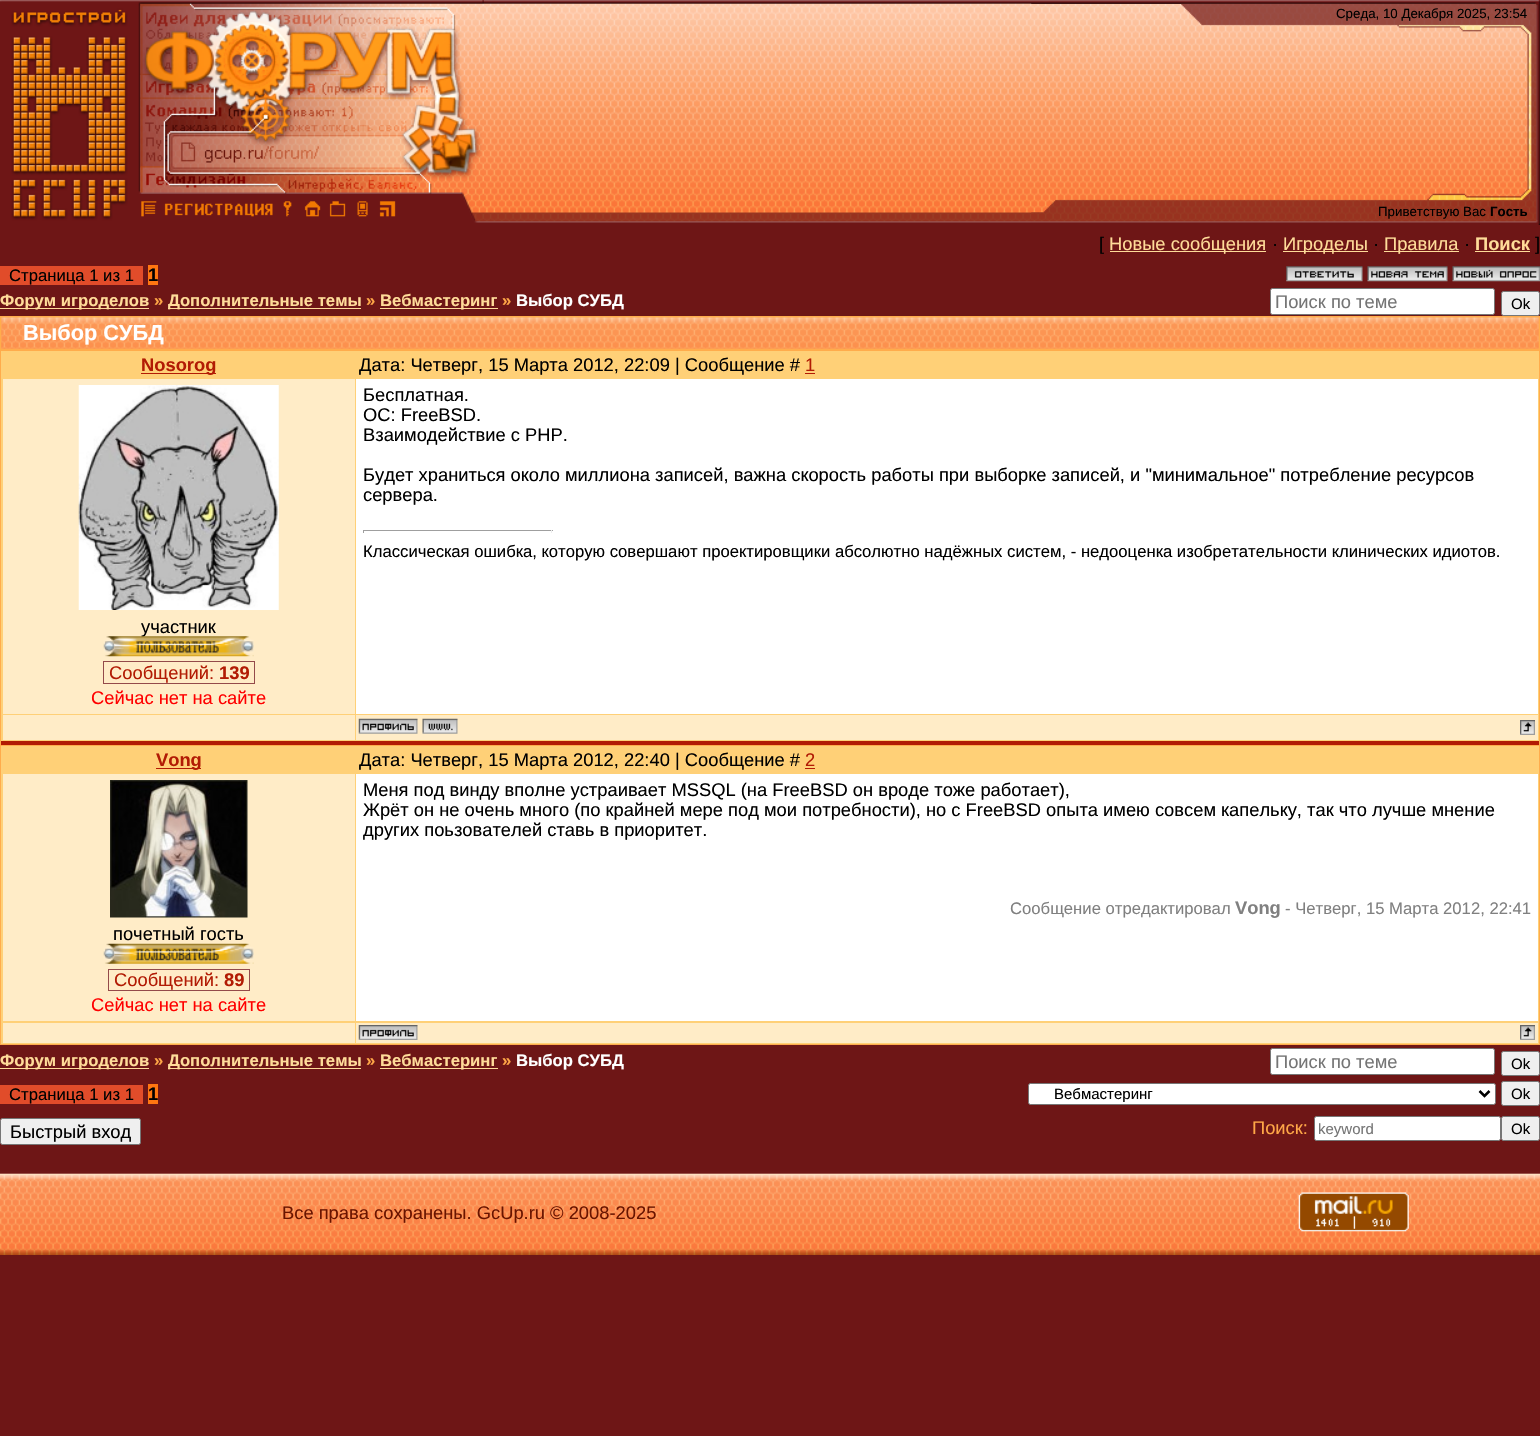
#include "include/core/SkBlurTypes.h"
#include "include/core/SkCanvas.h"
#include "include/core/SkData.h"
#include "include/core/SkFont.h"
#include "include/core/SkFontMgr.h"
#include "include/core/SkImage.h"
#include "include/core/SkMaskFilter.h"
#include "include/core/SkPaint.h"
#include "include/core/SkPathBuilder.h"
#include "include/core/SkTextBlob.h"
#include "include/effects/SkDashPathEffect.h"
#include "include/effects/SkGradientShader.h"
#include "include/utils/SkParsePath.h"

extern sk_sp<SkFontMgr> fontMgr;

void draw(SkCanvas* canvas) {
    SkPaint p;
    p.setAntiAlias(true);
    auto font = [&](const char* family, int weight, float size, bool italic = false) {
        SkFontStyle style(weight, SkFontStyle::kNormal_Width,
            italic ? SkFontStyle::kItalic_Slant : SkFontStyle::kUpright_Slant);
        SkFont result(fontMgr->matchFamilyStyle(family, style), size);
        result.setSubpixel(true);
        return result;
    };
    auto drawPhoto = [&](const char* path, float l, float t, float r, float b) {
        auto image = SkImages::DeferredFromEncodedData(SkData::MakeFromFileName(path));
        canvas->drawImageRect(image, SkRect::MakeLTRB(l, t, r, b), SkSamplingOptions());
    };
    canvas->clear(0xFF6E1616);
    drawPhoto("media/1.png", 483, 0, 1528, 223);
    drawPhoto("media/2.png", 0, 0, 484, 223);
    drawPhoto("media/3.png", 141, 201, 157, 217);
    drawPhoto("media/4.png", 164, 203, 273, 217);
    drawPhoto("media/5.png", 283, 201, 292, 217);
    drawPhoto("media/6.png", 304, 201, 321, 217);
    drawPhoto("media/7.png", 329, 201, 346, 217);
    drawPhoto("media/8.png", 357, 201, 368, 217);
    drawPhoto("media/9.png", 379, 201, 396, 217);
    drawPhoto("media/10.png", 1031, 0, 1540, 225);
    auto font1 = font("Liberation Sans", 400, 13.3f);
    p.setColor(0xFF000000);
    canvas->drawString("Среда, 10 Декабря 2025, 23:54", 1336, 18, font1, p);
    canvas->drawString("Приветствую Вас", 1378, 216, font1, p);
    auto font2 = font("Liberation Sans", 700, 13.3f);
    canvas->drawString("Гость", 1490, 216, font2, p);
    auto font3 = font("Liberation Sans", 400, 18.33f);
    canvas->drawString("[", 1099, 250, font3, p);
    p.setColor(0xFFFFDC99);
    canvas->drawRect(SkRect::MakeLTRB(1110, 251, 1266, 252), p);
    canvas->drawString("Новые сообщения", 1109, 250, font3, p);
    p.setColor(0xFF000000);
    canvas->drawString("·", 1272, 250, font3, p);
    p.setColor(0xFFFFDC99);
    canvas->drawRect(SkRect::MakeLTRB(1283, 251, 1368, 252), p);
    canvas->drawString("Игроделы", 1283, 250, font3, p);
    p.setColor(0xFF000000);
    canvas->drawString("·", 1373, 250, font3, p);
    p.setColor(0xFFFFDC99);
    canvas->drawRect(SkRect::MakeLTRB(1384, 251, 1459, 252), p);
    canvas->drawString("Правила", 1384, 250, font3, p);
    p.setColor(0xFF000000);
    canvas->drawString("·", 1464, 250, font3, p);
    auto font4 = font("Liberation Sans", 700, 18.33f);
    p.setColor(0xFFFFDC99);
    canvas->drawString("Поиск", 1475, 250, font4, p);
    canvas->drawRect(SkRect::MakeLTRB(1475, 251, 1530, 252), p);
    p.setColor(0xFF000000);
    canvas->drawString("]", 1535, 250, font3, p);
    p.setColor(0xFFE14C2A);
    canvas->drawRect(SkRect::MakeLTRB(0, 266, 143, 285), p);
    auto font5 = font("Liberation Sans", 400, 16.67f);
    p.setColor(0xFF000000);
    canvas->drawString("Страница 1 из 1", 9, 281, font5, p);
    p.setColor(0xFFFF7611);
    canvas->drawRect(SkRect::MakeLTRB(148, 265, 158, 285), p);
    p.setColor(0xFF000000);
    canvas->drawString("1", 148, 281, font4, p);
    drawPhoto("media/11.png", 1286, 266, 1363, 282);
    drawPhoto("media/12.png", 1367, 266, 1448, 282);
    drawPhoto("media/13.png", 1452, 266, 1540, 282);
    p.setColor(0xFFFFDC99);
    canvas->drawRect(SkRect::MakeLTRB(0, 308, 149, 309), p);
    auto font6 = font("Liberation Sans", 700, 16.67f);
    canvas->drawString("Форум игроделов", 0, 306, font6, p);
    p.setColor(0xFFFFA747);
    canvas->drawString("»", 154, 306, font6, p);
    p.setColor(0xFFFFDC99);
    canvas->drawRect(SkRect::MakeLTRB(168, 308, 361, 309), p);
    canvas->drawString("Дополнительные темы", 168, 306, font6, p);
    p.setColor(0xFFFFA747);
    canvas->drawString("»", 366, 306, font6, p);
    p.setColor(0xFFFFDC99);
    canvas->drawRect(SkRect::MakeLTRB(380, 308, 498, 309), p);
    canvas->drawString("Вебмастеринг", 380, 306, font6, p);
    p.setColor(0xFFFFA747);
    canvas->drawString("»", 502, 306, font6, p);
    p.setColor(0xFFFFFFFF);
    canvas->drawString("Выбор СУБД", 516, 306, font6, p);
    canvas->drawRoundRect(SkRect::MakeLTRB(1270.5f, 288.5f, 1494.5f, 314.5f), 2, 2, p);
    p.setStyle(SkPaint::kStroke_Style);
    p.setStrokeWidth(1);
    p.setColor(0xFF767676);
    canvas->drawRoundRect(SkRect::MakeLTRB(1270.5f, 288.5f, 1494.5f, 314.5f), 2, 2, p);
    p.setStyle(SkPaint::kFill_Style);
    p.setColor(0xFF757575);
    canvas->drawString("Поиск по теме", 1275, 308, font3, p);
    p.setColor(0xFFEFEFEF);
    canvas->drawRoundRect(SkRect::MakeLTRB(1501.5f, 291.5f, 1539.5f, 315.5f), 2, 2, p);
    p.setStyle(SkPaint::kStroke_Style);
    p.setColor(0xFF767676);
    canvas->drawRoundRect(SkRect::MakeLTRB(1501.5f, 291.5f, 1539.5f, 315.5f), 2, 2, p);
    auto font7 = font("Liberation Sans", 400, 15);
    p.setStyle(SkPaint::kFill_Style);
    p.setColor(0xFF000000);
    canvas->drawString("Ok", 1511, 309, font7, p);
    p.setColor(0xFFFFAC4C);
    canvas->drawRect(SkRect::MakeLTRB(0, 316, 1540, 1045), p);
    drawPhoto("media/14.png", 1, 317, 1539, 349);
    auto font8 = font("Liberation Sans", 700, 21.75f);
    p.setColor(0xFFFFFFFF);
    canvas->drawString("Выбор СУБД", 23, 340, font8, p);
    {
        const struct { float l, t, r, b; SkColor color; } items[] = {
            {1, 741, 1539, 745, 0xFFB21B04},
            {1, 351, 1539, 741, 0xFFFFD077},
            {141, 373, 216, 374, 0xFFB21B04},
        };
        for (auto [l, t, r, b, color] : items) {
            p.setColor(color);
            canvas->drawRect(SkRect::MakeLTRB(l, t, r, b), p);
        }
    }
    canvas->drawString("Nosorog", 141, 371, font4, p);
    p.setColor(0xFF000000);
    canvas->drawString("Дата: Четверг, 15 Марта 2012, 22:09 | Сообщение #", 359, 371, font3, p);
    p.setColor(0xFFB21B04);
    canvas->drawString("1", 805, 371, font3, p);
    canvas->drawRect(SkRect::MakeLTRB(805, 373, 815, 374), p);
    p.setColor(0xFFFFFFFF);
    canvas->drawRect(SkRect::MakeLTRB(356, 379, 1538, 714), p);
    p.setColor(0xFF000000);
    {
        const struct { const char* s; float x, y; } items[] = {
            {"Бесплатная.", 363, 401},
            {"ОС: FreeBSD.", 363, 421},
            {"Взаимодействие с PHP.", 363, 441},
            {"Будет храниться около миллиона записей, важна скорость работы при выборке записей, и \"минимальное\" потребление ресурсов", 363, 481},
            {"сервера.", 363, 501},
        };
        for (auto [s, x, y] : items) {
            canvas->drawString(s, x, y, font3, p);
        }
    }
    {
        const struct { float l, t, r, b; SkColor color; } items[] = {
            {363, 530, 553, 531, 0xFF9F9F9F},
            {551, 530, 552, 533, 0xFFEEEEEE},
            {363, 530, 364, 533, 0xFF9F9F9F},
        };
        for (auto [l, t, r, b, color] : items) {
            p.setColor(color);
            canvas->drawRect(SkRect::MakeLTRB(l, t, r, b), p);
        }
    }
    p.setColor(0xFF000000);
    canvas->drawString("Классическая ошибка, которую совершают проектировщики абсолютно надёжных систем, - недооценка изобретательности клинических идиотов.", 363, 557, font5, p);
    p.setColor(0xFFFFECC7);
    canvas->drawRect(SkRect::MakeLTRB(3, 379, 355, 714), p);
    drawPhoto("media/15.png", 78, 385, 279, 610);
    p.setColor(0xFF000000);
    canvas->drawString("участник", 141, 633, font3, p);
    drawPhoto("media/16.png", 103, 636, 254, 657);
    p.setColor(0xFFB21B04);
    canvas->drawString("Сообщений:", 109, 679, font3, p);
    {
        const struct { float l, t, r, b; SkColor color; } items[] = {
            {103, 683, 219, 684, 0xFF934A4A},
            {103, 661, 255, 662, 0xFF934A4A},
            {103, 661, 104, 684, 0xFF934A4A},
        };
        for (auto [l, t, r, b, color] : items) {
            p.setColor(color);
            canvas->drawRect(SkRect::MakeLTRB(l, t, r, b), p);
        }
    }
    p.setColor(0xFFB21B04);
    canvas->drawString("139", 219, 679, font4, p);
    p.setColor(0xFF934A4A);
    canvas->drawRect(SkRect::MakeLTRB(254, 661, 255, 684), p);
    canvas->drawRect(SkRect::MakeLTRB(219, 683, 255, 684), p);
    p.setColor(0xFFFF0000);
    canvas->drawString("Сейчас нет на сайте", 91, 704, font3, p);
    p.setColor(0xFFFFECC7);
    canvas->drawRect(SkRect::MakeLTRB(3, 715, 355, 740), p);
    canvas->drawRect(SkRect::MakeLTRB(356, 715, 1538, 740), p);
    drawPhoto("media/17.png", 358, 718, 418, 734);
    drawPhoto("media/18.png", 422, 718, 458, 734);
    drawPhoto("media/19.png", 1520, 720, 1535, 735);
    p.setColor(0xFFFFD077);
    canvas->drawRect(SkRect::MakeLTRB(1, 746, 1539, 1044), p);
    p.setColor(0xFFB21B04);
    canvas->drawRect(SkRect::MakeLTRB(156, 768, 201, 769), p);
    canvas->drawString("Vong", 156, 766, font4, p);
    p.setColor(0xFF000000);
    canvas->drawString("Дата: Четверг, 15 Марта 2012, 22:40 | Сообщение #", 359, 766, font3, p);
    p.setColor(0xFFB21B04);
    canvas->drawString("2", 805, 766, font3, p);
    canvas->drawRect(SkRect::MakeLTRB(805, 768, 815, 769), p);
    p.setColor(0xFFFFFFFF);
    canvas->drawRect(SkRect::MakeLTRB(356, 774, 1538, 1021), p);
    p.setColor(0xFF000000);
    {
        const struct { const char* s; float x, y; } items[] = {
            {"Меня под винду вполне устраивает MSSQL (на FreeBSD он вроде тоже работает),", 363, 796},
            {"Жрёт он не очень много (по крайней мере под мои потребности), но с FreeBSD опыта имею совсем капельку, так что лучше мнение", 363, 816},
            {"других поьзователей ставь в приоритет.", 363, 836},
        };
        for (auto [s, x, y] : items) {
            canvas->drawString(s, x, y, font3, p);
        }
    }
    p.setColor(0xFF808080);
    canvas->drawString("Сообщение отредактировал", 1010, 914, font5, p);
    canvas->drawString("Vong", 1235, 914, font4, p);
    canvas->drawString("- Четверг, 15 Марта 2012, 22:41", 1285, 914, font5, p);
    p.setColor(0xFFFFECC7);
    canvas->drawRect(SkRect::MakeLTRB(3, 774, 355, 1021), p);
    drawPhoto("media/20.png", 110, 780, 248, 918);
    p.setColor(0xFF000000);
    canvas->drawString("почетный гость", 113, 940, font3, p);
    drawPhoto("media/21.png", 103, 943, 254, 964);
    p.setColor(0xFFB21B04);
    canvas->drawString("Сообщений:", 114, 986, font3, p);
    {
        const struct { float l, t, r, b; SkColor color; } items[] = {
            {108, 990, 224, 991, 0xFF934A4A},
            {108, 969, 250, 970, 0xFF934A4A},
            {108, 969, 109, 991, 0xFF934A4A},
        };
        for (auto [l, t, r, b, color] : items) {
            p.setColor(color);
            canvas->drawRect(SkRect::MakeLTRB(l, t, r, b), p);
        }
    }
    p.setColor(0xFFB21B04);
    canvas->drawString("89", 224, 986, font4, p);
    p.setColor(0xFF934A4A);
    canvas->drawRect(SkRect::MakeLTRB(249, 969, 250, 991), p);
    canvas->drawRect(SkRect::MakeLTRB(224, 990, 250, 991), p);
    p.setColor(0xFFFF0000);
    canvas->drawString("Сейчас нет на сайте", 91, 1011, font3, p);
    p.setColor(0xFFFFECC7);
    canvas->drawRect(SkRect::MakeLTRB(3, 1023, 355, 1043), p);
    canvas->drawRect(SkRect::MakeLTRB(356, 1023, 1538, 1043), p);
    drawPhoto("media/22.png", 358, 1025, 418, 1040);
    drawPhoto("media/23.png", 1520, 1025, 1535, 1040);
    p.setColor(0xFFFFDC99);
    canvas->drawRect(SkRect::MakeLTRB(0, 1068, 149, 1069), p);
    canvas->drawString("Форум игроделов", 0, 1066, font6, p);
    p.setColor(0xFFFFA747);
    canvas->drawString("»", 154, 1066, font6, p);
    p.setColor(0xFFFFDC99);
    canvas->drawRect(SkRect::MakeLTRB(168, 1068, 361, 1069), p);
    canvas->drawString("Дополнительные темы", 168, 1066, font6, p);
    p.setColor(0xFFFFA747);
    canvas->drawString("»", 366, 1066, font6, p);
    p.setColor(0xFFFFDC99);
    canvas->drawRect(SkRect::MakeLTRB(380, 1068, 498, 1069), p);
    canvas->drawString("Вебмастеринг", 380, 1066, font6, p);
    p.setColor(0xFFFFA747);
    canvas->drawString("»", 502, 1066, font6, p);
    p.setColor(0xFFFFFFFF);
    canvas->drawString("Выбор СУБД", 516, 1066, font6, p);
    canvas->drawRoundRect(SkRect::MakeLTRB(1270.5f, 1048.5f, 1494.5f, 1074.5f), 2, 2, p);
    p.setStyle(SkPaint::kStroke_Style);
    p.setColor(0xFF767676);
    canvas->drawRoundRect(SkRect::MakeLTRB(1270.5f, 1048.5f, 1494.5f, 1074.5f), 2, 2, p);
    p.setStyle(SkPaint::kFill_Style);
    p.setColor(0xFF757575);
    canvas->drawString("Поиск по теме", 1275, 1068, font3, p);
    p.setColor(0xFFEFEFEF);
    canvas->drawRoundRect(SkRect::MakeLTRB(1501.5f, 1051.5f, 1539.5f, 1075.5f), 2, 2, p);
    p.setStyle(SkPaint::kStroke_Style);
    p.setColor(0xFF767676);
    canvas->drawRoundRect(SkRect::MakeLTRB(1501.5f, 1051.5f, 1539.5f, 1075.5f), 2, 2, p);
    p.setStyle(SkPaint::kFill_Style);
    p.setColor(0xFF000000);
    canvas->drawString("Ok", 1511, 1069, font7, p);
    p.setColor(0xFFE14C2A);
    canvas->drawRect(SkRect::MakeLTRB(0, 1085, 143, 1104), p);
    p.setColor(0xFF000000);
    canvas->drawString("Страница 1 из 1", 9, 1100, font5, p);
    p.setColor(0xFFFF7611);
    canvas->drawRect(SkRect::MakeLTRB(148, 1084, 158, 1104), p);
    p.setColor(0xFF000000);
    canvas->drawString("1", 148, 1100, font4, p);
    p.setColor(0xFFFFFFFF);
    canvas->drawRoundRect(SkRect::MakeLTRB(1028.5f, 1083.5f, 1495.5f, 1104.5f), 2, 2, p);
    p.setStyle(SkPaint::kStroke_Style);
    p.setColor(0xFF767676);
    canvas->drawRoundRect(SkRect::MakeLTRB(1028.5f, 1083.5f, 1495.5f, 1104.5f), 2, 2, p);
    p.setStrokeWidth(2.5f);
    p.setColor(0xFF000000);
    canvas->drawPath(SkPathBuilder().moveTo(1479.5f, 1091).lineTo(1484.5f, 1096).lineTo(1489.5f, 1091).detach(), p);
    p.setStyle(SkPaint::kFill_Style);
    canvas->drawString("Вебмастеринг", 1054, 1099, font7, p);
    p.setColor(0xFFEFEFEF);
    canvas->drawRoundRect(SkRect::MakeLTRB(1501.5f, 1081.5f, 1539.5f, 1105.5f), 2, 2, p);
    p.setStyle(SkPaint::kStroke_Style);
    p.setStrokeWidth(1);
    p.setColor(0xFF767676);
    canvas->drawRoundRect(SkRect::MakeLTRB(1501.5f, 1081.5f, 1539.5f, 1105.5f), 2, 2, p);
    p.setStyle(SkPaint::kFill_Style);
    p.setColor(0xFF000000);
    canvas->drawString("Ok", 1511, 1099, font7, p);
    p.setColor(0xFFEFEFEF);
    canvas->drawRoundRect(SkRect::MakeLTRB(0.5f, 1118.5f, 140.5f, 1144.5f), 2, 2, p);
    p.setStyle(SkPaint::kStroke_Style);
    p.setColor(0xFF767676);
    canvas->drawRoundRect(SkRect::MakeLTRB(0.5f, 1118.5f, 140.5f, 1144.5f), 2, 2, p);
    p.setStyle(SkPaint::kFill_Style);
    p.setColor(0xFF000000);
    canvas->drawString("Быстрый вход", 10, 1138, font3, p);
    p.setColor(0xFFFFA747);
    canvas->drawString("Поиск:", 1252, 1134, font3, p);
    p.setColor(0xFFFFFFFF);
    canvas->drawRoundRect(SkRect::MakeLTRB(1314.5f, 1116.5f, 1500.5f, 1140.5f), 2, 2, p);
    p.setStyle(SkPaint::kStroke_Style);
    p.setColor(0xFF767676);
    canvas->drawRoundRect(SkRect::MakeLTRB(1314.5f, 1116.5f, 1500.5f, 1140.5f), 2, 2, p);
    p.setStyle(SkPaint::kFill_Style);
    p.setColor(0xFF757575);
    canvas->drawString("keyword", 1318, 1134, font7, p);
    p.setColor(0xFFEFEFEF);
    canvas->drawRoundRect(SkRect::MakeLTRB(1501.5f, 1116.5f, 1539.5f, 1140.5f), 2, 2, p);
    p.setStyle(SkPaint::kStroke_Style);
    p.setColor(0xFF767676);
    canvas->drawRoundRect(SkRect::MakeLTRB(1501.5f, 1116.5f, 1539.5f, 1140.5f), 2, 2, p);
    p.setStyle(SkPaint::kFill_Style);
    p.setColor(0xFF000000);
    canvas->drawString("Ok", 1511, 1134, font7, p);
    drawPhoto("media/24.png", 0, 1171, 1540, 1255);
    p.setColor(0xFF691400);
    canvas->drawString("Все права сохранены. GcUp.ru © 2008-2025", 282, 1219, font3, p);
    drawPhoto("media/25.png", 1298, 1192, 1409, 1232);
}
